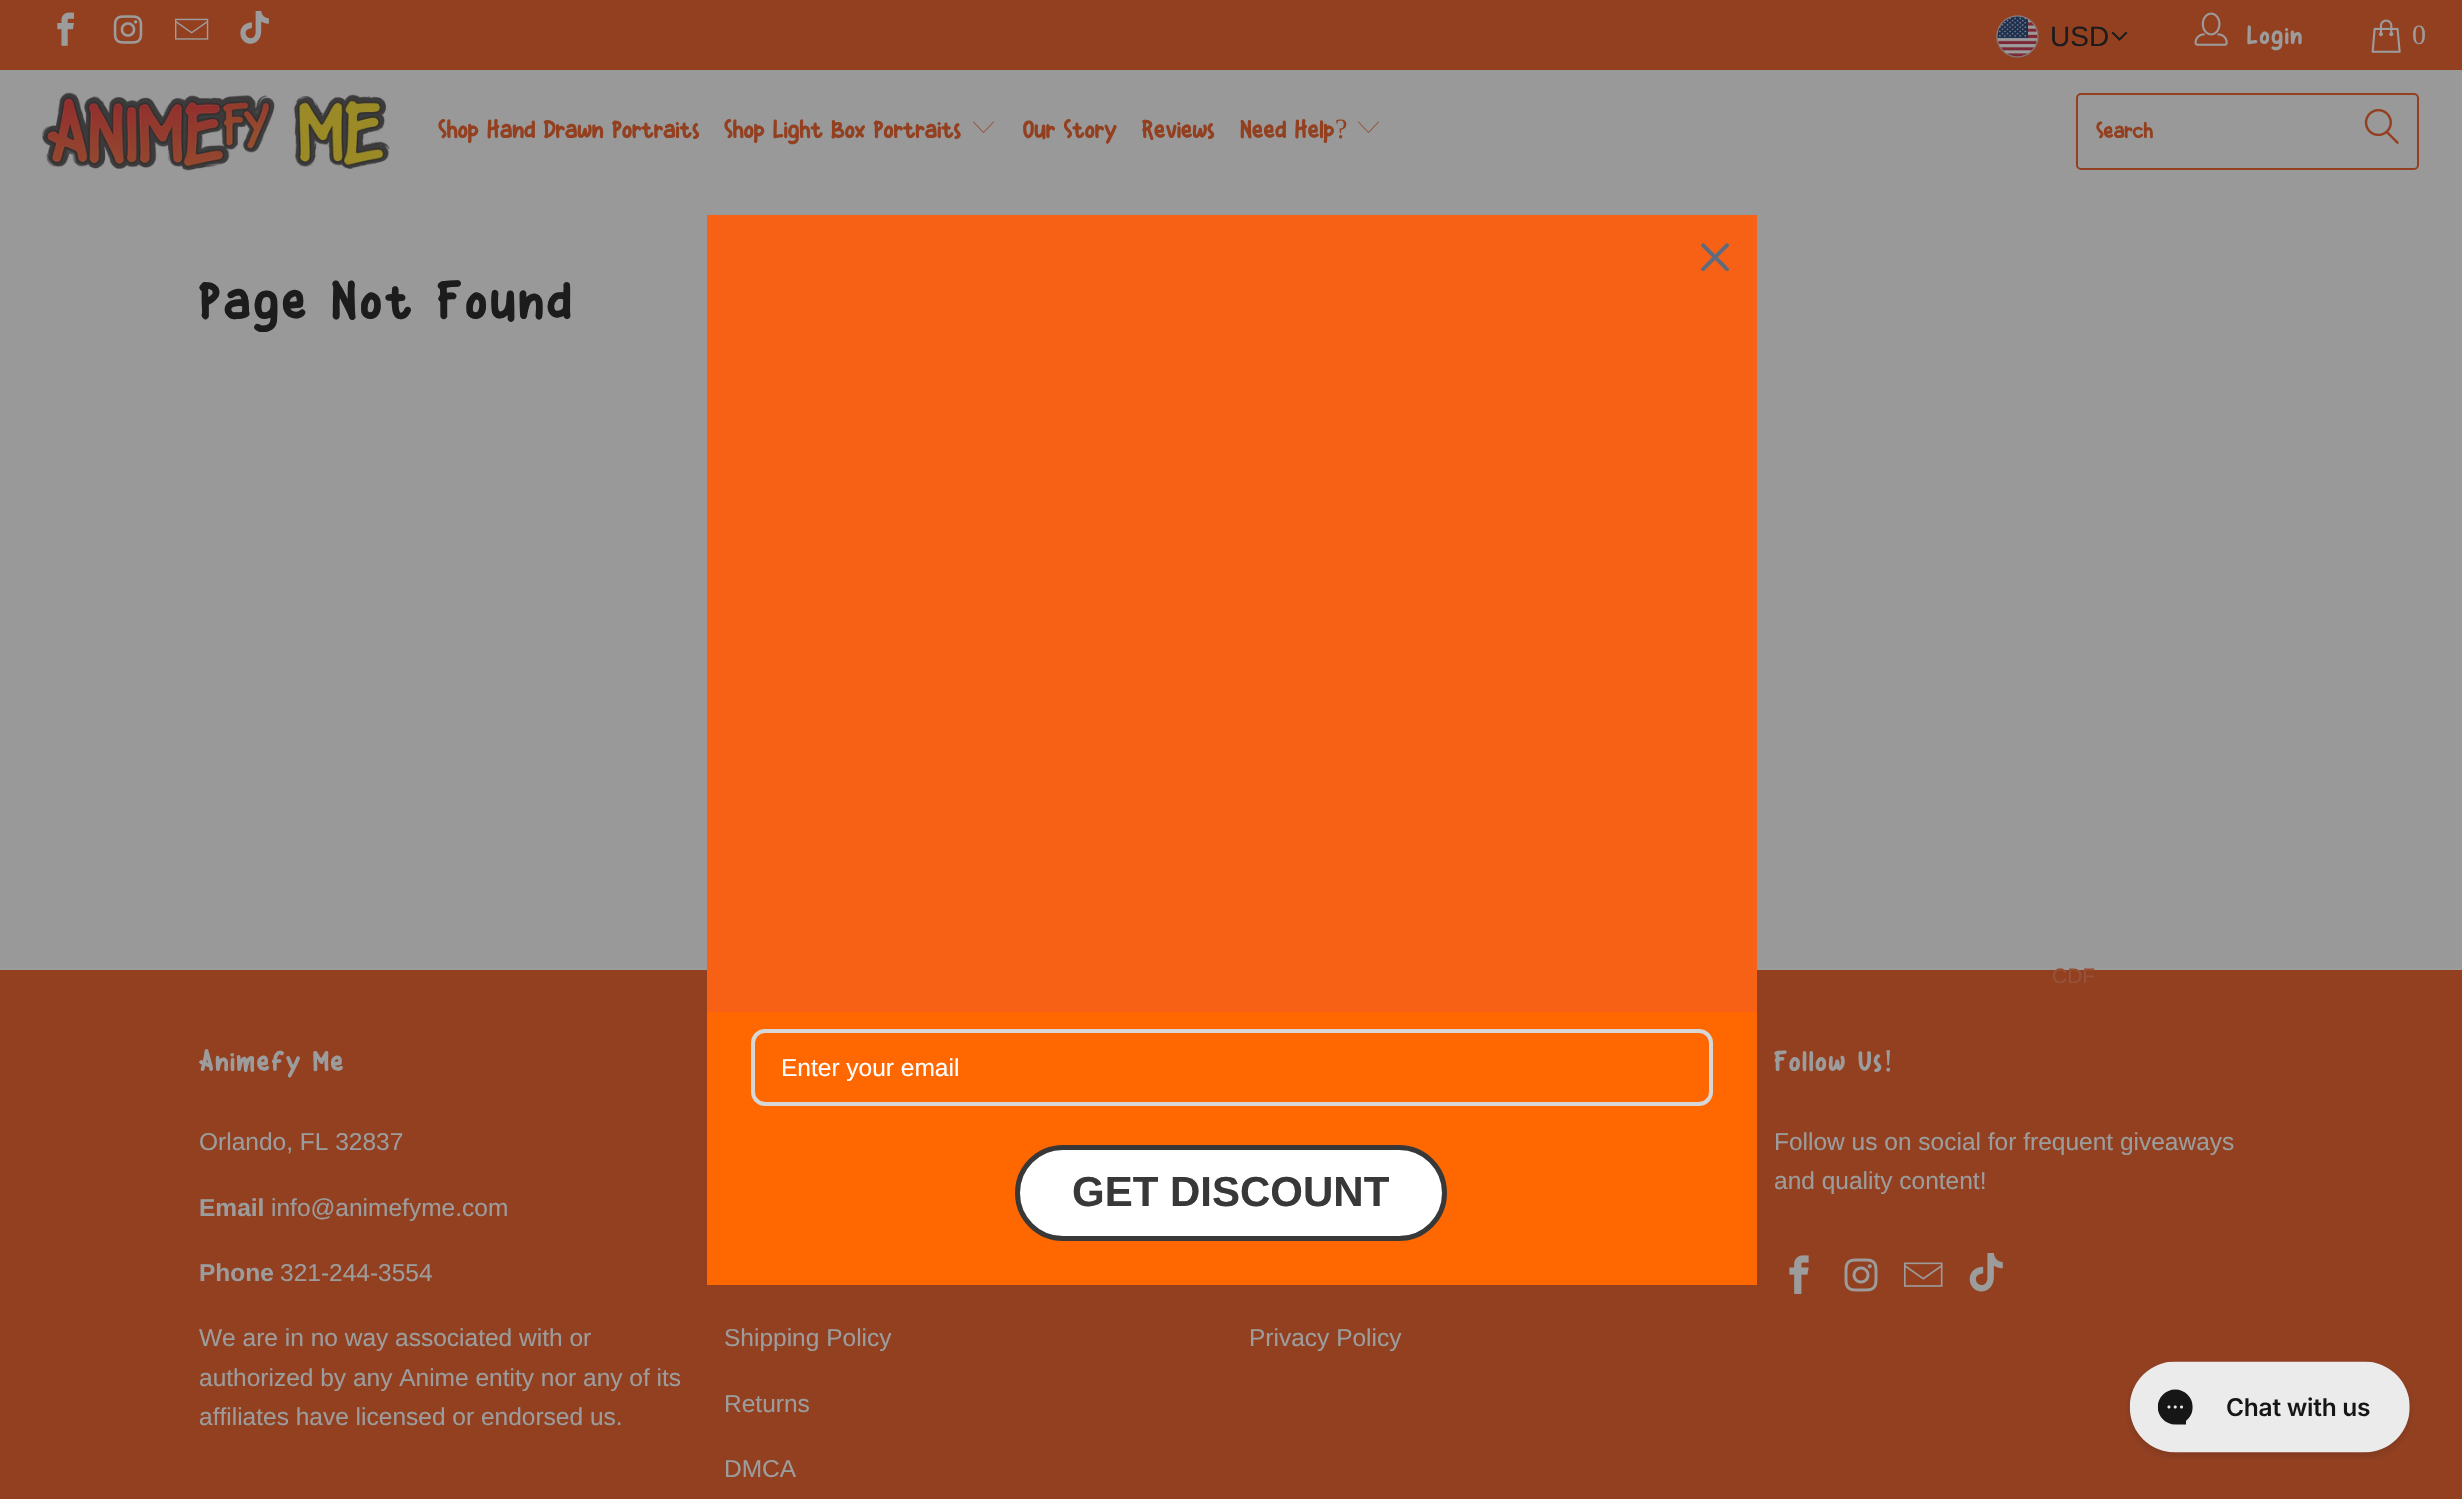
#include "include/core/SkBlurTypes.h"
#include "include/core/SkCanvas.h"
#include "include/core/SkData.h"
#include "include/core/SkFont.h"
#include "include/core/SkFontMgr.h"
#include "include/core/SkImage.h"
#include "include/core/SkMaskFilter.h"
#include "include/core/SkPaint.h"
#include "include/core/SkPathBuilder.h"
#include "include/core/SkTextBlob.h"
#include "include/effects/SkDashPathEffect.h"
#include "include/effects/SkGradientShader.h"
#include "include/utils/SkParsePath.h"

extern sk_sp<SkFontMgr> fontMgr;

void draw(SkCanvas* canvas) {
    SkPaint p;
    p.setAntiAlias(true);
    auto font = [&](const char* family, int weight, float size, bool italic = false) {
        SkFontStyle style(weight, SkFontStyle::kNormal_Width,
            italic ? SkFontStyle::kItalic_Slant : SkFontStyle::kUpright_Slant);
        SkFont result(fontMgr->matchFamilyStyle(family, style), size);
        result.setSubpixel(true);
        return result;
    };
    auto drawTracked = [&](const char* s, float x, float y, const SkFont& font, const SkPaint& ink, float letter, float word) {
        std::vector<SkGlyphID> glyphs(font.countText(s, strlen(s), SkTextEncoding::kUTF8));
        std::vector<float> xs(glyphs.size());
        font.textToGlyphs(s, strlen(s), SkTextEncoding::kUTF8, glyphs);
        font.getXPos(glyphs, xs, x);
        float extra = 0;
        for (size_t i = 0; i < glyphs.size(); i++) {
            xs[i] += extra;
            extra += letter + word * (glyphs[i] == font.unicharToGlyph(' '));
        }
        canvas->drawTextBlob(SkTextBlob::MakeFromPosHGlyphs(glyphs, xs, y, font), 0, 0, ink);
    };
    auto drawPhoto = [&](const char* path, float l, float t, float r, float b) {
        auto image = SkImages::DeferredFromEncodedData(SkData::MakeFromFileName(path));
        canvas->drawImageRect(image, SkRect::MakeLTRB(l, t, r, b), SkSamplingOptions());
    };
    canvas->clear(0xFF999999);
    auto font1 = font("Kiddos", 500, 59.5f, true);
    p.setColor(0xFF1C1C1C);
    drawTracked("Page Not Found", 199, 319, font1, p, 3.5f, 0);
    drawPhoto("media/1.png", 42, 92, 390, 171);
    auto font2 = font("Kiddos", 500, 28, true);
    p.setColor(0xFF934021);
    canvas->drawString("Shop Hand Drawn Portraits", 438, 138, font2, p);
    canvas->drawString("Shop Light Box Portraits", 724, 138, font2, p);
    canvas->drawPath(SkPathBuilder().moveTo(983.5f, 133).lineTo(973, 122).lineTo(973.5f, 121.5f).lineTo(983.5f, 132).lineTo(993.5f, 121.5f).lineTo(994, 122).close().detach(), p);
    {
        const struct { const char* s; float x, y; } items[] = {
            {"Our Story", 1023, 138},
            {"Reviews", 1142, 138},
            {"Need Help", 1240, 138},
        };
        for (auto [s, x, y] : items) {
            canvas->drawString(s, x, y, font2, p);
        }
    }
    auto font3 = font("Liberation Serif", 400, 28);
    canvas->drawString("?", 1335, 138, font3, p);
    canvas->drawPath(SkPathBuilder().moveTo(1368.5f, 133).lineTo(1358, 122).lineTo(1358.5f, 121.5f).lineTo(1368.5f, 132).lineTo(1378.5f, 121.5f).lineTo(1379, 122).close().detach(), p);
    p.setStyle(SkPaint::kStroke_Style);
    p.setStrokeWidth(2);
    canvas->drawRoundRect(SkRect::MakeLTRB(2077, 94, 2418, 169), 4, 4, p);
    auto font4 = font("Kiddos", 500, 24.5f, true);
    p.setStyle(SkPaint::kFill_Style);
    canvas->drawString("Search", 2096, 138, font4, p);
    drawPhoto("media/2.png", 2364, 108, 2399, 144);
    canvas->drawRect(SkRect::MakeLTRB(0, 0, 2462, 70), p);
    drawPhoto("media/3.png", 57, 12, 74, 46);
    drawPhoto("media/4.png", 113, 15, 143, 44);
    drawPhoto("media/5.png", 175, 18, 209, 40);
    drawPhoto("media/6.png", 240, 11, 269, 44);
    drawPhoto("media/7.png", 1996, 15, 2039, 58);
    auto font5 = font("Liberation Sans", 400, 28);
    p.setColor(0xFF1C1C1C);
    canvas->drawString("USD", 2050, 46, font5, p);
    p.setColor(0xFF934021);
    canvas->drawRect(SkRect::MakeLTRB(0, 970, 2462, 1499), p);
    p.setColor(0xFF9C9C9C);
    canvas->drawRect(SkRect::MakeLTRB(0, 968, 2462, 970), p);
    auto font6 = font("Liberation Sans", 400, 21);
    p.setColor(0xFF955239);
    canvas->drawString("CDF", 2052, 983, font6, p);
    drawPhoto("media/8.png", 2111, 31, 2128, 41);
    drawPhoto("media/9.png", 2194, 12, 2228, 46);
    p.setColor(0xFF9C9C9C);
    drawTracked("Login", 2247, 44, font2, p, 1.75f, 0);
    drawPhoto("media/10.png", 2371, 19, 2401, 53);
    drawTracked("0", 2412, 44, font3, p, 1.75f, 0);
    auto font7 = font("Kiddos", 500, 31.5f, true);
    drawTracked("Animefy Me", 199, 1071, font7, p, 1.75f, 0);
    auto font8 = font("Liberation Sans", 400, 24.5f);
    canvas->drawString("Orlando, FL 32837", 199, 1150, font8, p);
    auto font9 = font("Liberation Sans", 700, 24.5f);
    canvas->drawString("Email", 199, 1216, font9, p);
    canvas->drawString("info@animefyme.com", 271, 1216, font8, p);
    canvas->drawString("Phone", 199, 1281, font9, p);
    {
        const struct { const char* s; float x, y; } items[] = {
            {"321-244-3554", 280, 1281},
            {"We are in no way associated with or", 199, 1346},
            {"authorized by any Anime entity nor any of its", 199, 1386},
            {"affiliates have licensed or endorsed us.", 199, 1425},
        };
        for (auto [s, x, y] : items) {
            canvas->drawString(s, x, y, font8, p);
        }
    }
    drawTracked("Follow Us", 1774, 1071, font7, p, 1.75f, 0);
    auto font10 = font("Liberation Serif", 400, 31.5f);
    drawTracked("!", 1883, 1071, font10, p, 1.75f, 0);
    canvas->drawString("Follow us on social for frequent giveaways", 1774, 1150, font8, p);
    canvas->drawString("and quality content!", 1774, 1189, font8, p);
    drawPhoto("media/11.png", 1789, 1255, 1809, 1294);
    drawPhoto("media/12.png", 1844, 1258, 1878, 1292);
    drawPhoto("media/13.png", 1904, 1262, 1943, 1287);
    drawPhoto("media/14.png", 1969, 1253, 2003, 1292);
    {
        const struct { const char* s; float x, y; } items[] = {
            {"Shipping Policy", 724, 1346},
            {"Returns", 724, 1412},
            {"DMCA", 724, 1477},
            {"Privacy Policy", 1249, 1346},
        };
        for (auto [s, x, y] : items) {
            canvas->drawString(s, x, y, font8, p);
        }
    }
    p.setColor(0xFFF66115);
    canvas->drawRect(SkRect::MakeLTRB(707, 215, 1757, 1012), p);
    drawPhoto("media/15.png", 1701, 243, 1729, 271);
    p.setColor(0xFFFF6700);
    canvas->drawRect(SkRect::MakeLTRB(707, 1012, 1757, 1285), p);
    p.setStyle(SkPaint::kStroke_Style);
    p.setStrokeWidth(4);
    p.setColor(0xFFD7D7D7);
    canvas->drawRoundRect(SkRect::MakeLTRB(753, 1031, 1711, 1104), 12, 12, p);
    p.setStyle(SkPaint::kFill_Style);
    p.setColor(0xFFFFFFFF);
    canvas->drawString("Enter your email", 781, 1076, font8, p);
    canvas->drawRoundRect(SkRect::MakeLTRB(1017.5f, 1147.5f, 1444.5f, 1238.5f), 45.5f, 45.5f, p);
    p.setStyle(SkPaint::kStroke_Style);
    p.setStrokeWidth(5);
    p.setColor(0xFF383838);
    canvas->drawRoundRect(SkRect::MakeLTRB(1017.5f, 1147.5f, 1444.5f, 1238.5f), 45.5f, 45.5f, p);
    auto font11 = font("Liberation Sans", 700, 42);
    p.setStyle(SkPaint::kFill_Style);
    canvas->drawString("GET DISCOUNT", 1072, 1206, font11, p);
    drawPhoto("media/16.png", 2126, 1361, 2413, 1459);
}
